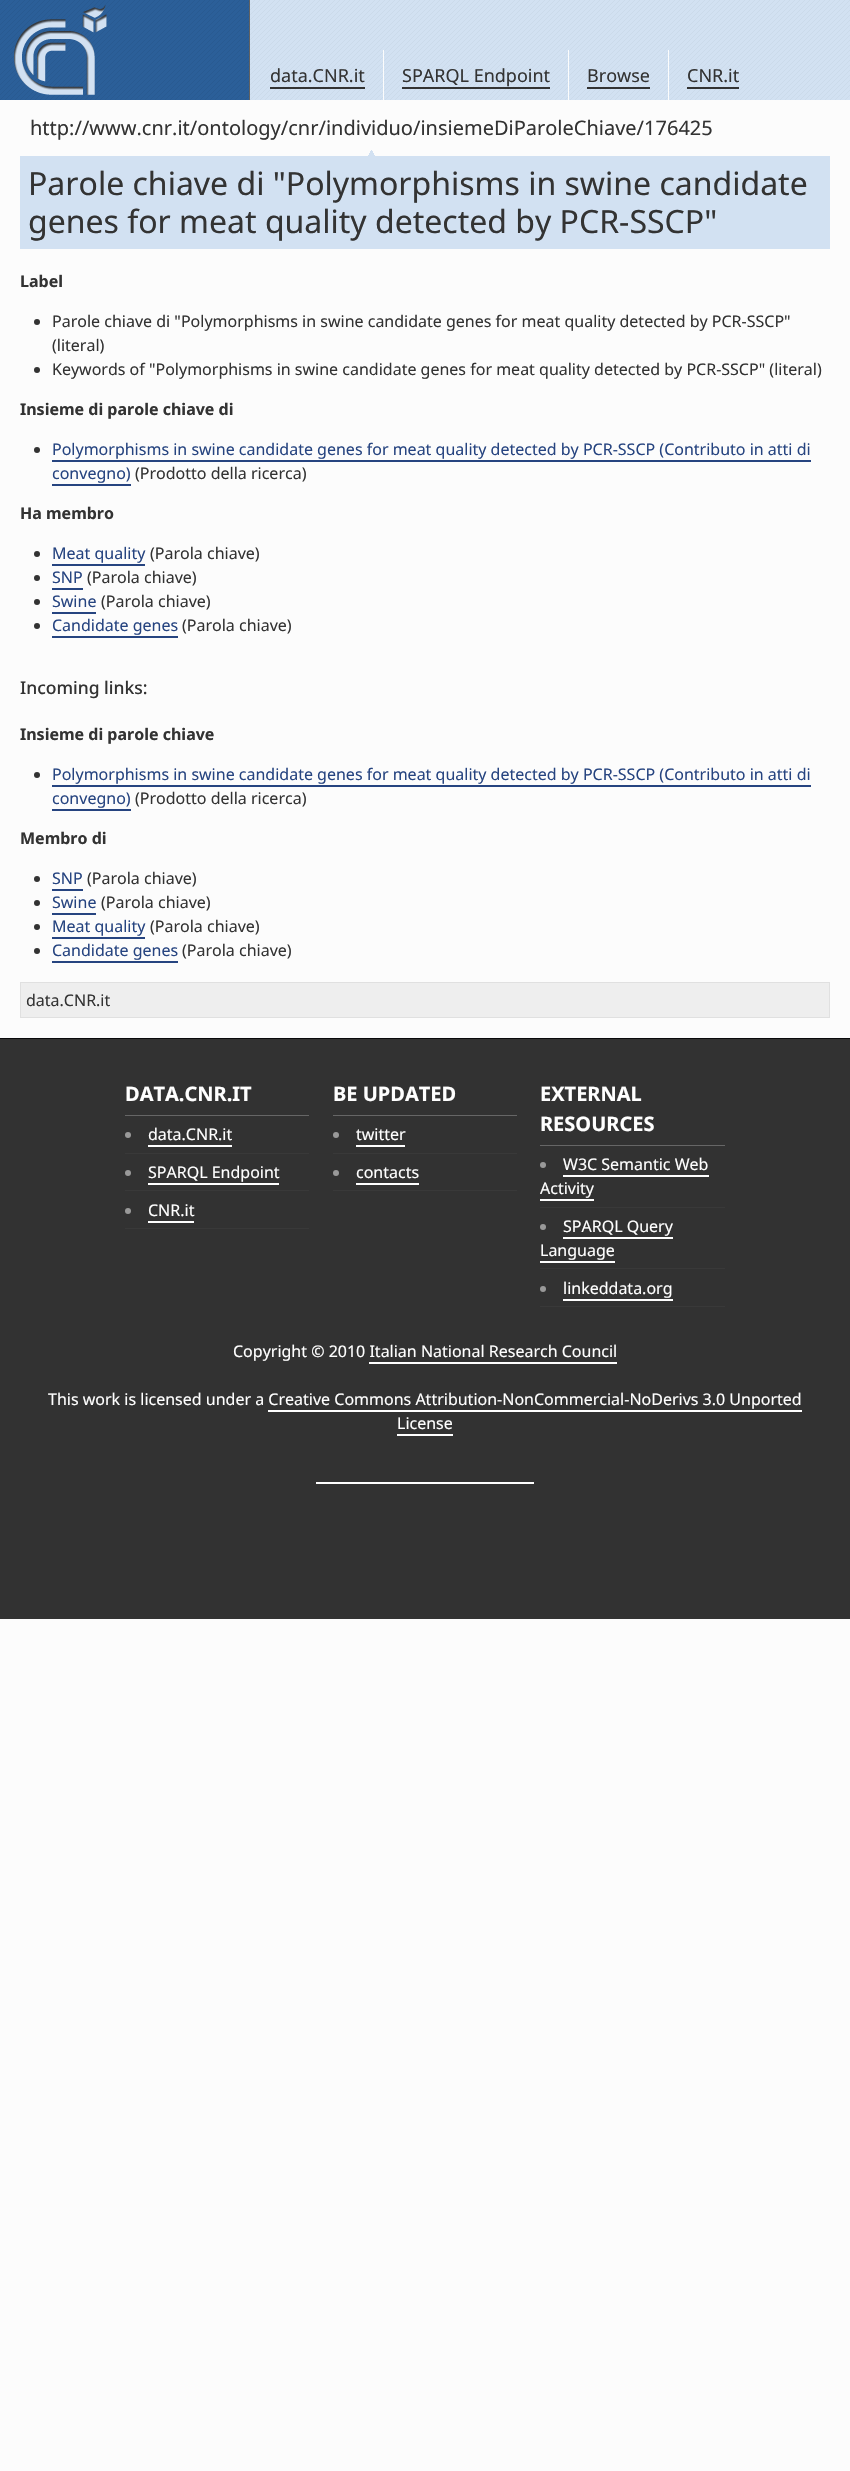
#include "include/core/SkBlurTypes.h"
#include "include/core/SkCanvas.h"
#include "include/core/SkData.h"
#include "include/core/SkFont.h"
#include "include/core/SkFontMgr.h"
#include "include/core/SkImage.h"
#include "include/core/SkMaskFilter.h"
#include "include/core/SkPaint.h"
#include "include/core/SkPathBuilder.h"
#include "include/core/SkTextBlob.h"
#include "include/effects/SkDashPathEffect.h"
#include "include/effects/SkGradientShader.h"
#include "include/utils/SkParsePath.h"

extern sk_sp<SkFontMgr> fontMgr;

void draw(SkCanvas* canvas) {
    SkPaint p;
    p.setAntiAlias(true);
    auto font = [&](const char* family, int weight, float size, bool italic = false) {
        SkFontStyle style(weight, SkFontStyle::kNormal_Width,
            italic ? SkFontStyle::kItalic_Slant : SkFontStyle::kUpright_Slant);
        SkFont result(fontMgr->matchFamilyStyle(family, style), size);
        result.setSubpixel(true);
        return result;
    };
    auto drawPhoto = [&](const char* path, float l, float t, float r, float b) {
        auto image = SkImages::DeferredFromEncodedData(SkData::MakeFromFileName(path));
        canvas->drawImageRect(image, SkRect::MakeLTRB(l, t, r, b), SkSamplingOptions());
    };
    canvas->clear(0xFFFCFCFC);
    drawPhoto("media/1.png", 250, 0, 850, 100);
    drawPhoto("media/2.png", 0, 0, 249, 100);
    p.setColor(0xFF626262);
    canvas->drawRect(SkRect::MakeLTRB(249, 0, 250, 100), p);
    auto font1 = font("Noto Sans", 400, 18);
    p.setColor(0xFF333333);
    canvas->drawString("data.CNR.it", 270, 82, font1, p);
    canvas->drawRect(SkRect::MakeLTRB(270, 87, 365, 89), p);
    p.setColor(0xFFFCFCFC);
    canvas->drawRect(SkRect::MakeLTRB(383, 50, 384, 100), p);
    p.setColor(0xFF333333);
    canvas->drawString("SPARQL Endpoint", 402, 82, font1, p);
    canvas->drawRect(SkRect::MakeLTRB(402, 87, 550, 89), p);
    p.setColor(0xFFFCFCFC);
    canvas->drawRect(SkRect::MakeLTRB(568, 50, 569, 100), p);
    p.setColor(0xFF333333);
    canvas->drawString("Browse", 587, 82, font1, p);
    canvas->drawRect(SkRect::MakeLTRB(587, 87, 650, 89), p);
    p.setColor(0xFFFCFCFC);
    canvas->drawRect(SkRect::MakeLTRB(668, 50, 669, 100), p);
    p.setColor(0xFF333333);
    canvas->drawString("CNR.it", 687, 82, font1, p);
    canvas->drawRect(SkRect::MakeLTRB(687, 87, 739, 89), p);
    auto font2 = font("Noto Sans", 400, 20);
    canvas->drawString("http://www.cnr.it/ontology/cnr/individuo/insiemeDiParoleChiave/176425", 30, 135, font2, p);
    drawPhoto("media/3.png", 368, 150, 375, 156);
    p.setColor(0xFFD2E1F2);
    canvas->drawRect(SkRect::MakeLTRB(20, 156, 830, 249), p);
    auto font3 = font("Noto Sans", 400, 32);
    p.setColor(0xFF333333);
    canvas->drawString("Parole chiave di \"Polymorphisms in swine candidate", 28, 195, font3, p);
    canvas->drawString("genes for meat quality detected by PCR-SSCP\"", 28, 233, font3, p);
    auto font4 = font("Noto Sans", 700, 16);
    canvas->drawString("Label", 20, 287, font4, p);
    canvas->drawCircle(37, 322, 3, p);
    auto font5 = font("Noto Sans", 400, 16);
    canvas->drawString("Parole chiave di \"Polymorphisms in swine candidate genes for meat quality detected by PCR-SSCP\"", 52, 327, font5, p);
    canvas->drawString("(literal)", 52, 351, font5, p);
    canvas->drawCircle(37, 370, 3, p);
    canvas->drawString("Keywords of \"Polymorphisms in swine candidate genes for meat quality detected by PCR-SSCP\" (literal)", 52, 375, font5, p);
    canvas->drawString("Insieme di parole chiave di", 20, 415, font4, p);
    canvas->drawCircle(37, 450, 3, p);
    p.setColor(0xFF264480);
    canvas->drawString("Polymorphisms in swine candidate genes for meat quality detected by PCR-SSCP (Contributo in atti di", 52, 455, font5, p);
    canvas->drawRect(SkRect::MakeLTRB(52, 460, 811, 462), p);
    canvas->drawString("convegno)", 52, 479, font5, p);
    canvas->drawRect(SkRect::MakeLTRB(52, 484, 131, 486), p);
    p.setColor(0xFF333333);
    canvas->drawString("(Prodotto della ricerca)", 135, 479, font5, p);
    canvas->drawString("Ha membro", 20, 519, font4, p);
    canvas->drawCircle(37, 554, 3, p);
    p.setColor(0xFF264480);
    canvas->drawString("Meat quality", 52, 559, font5, p);
    canvas->drawRect(SkRect::MakeLTRB(52, 564, 145, 566), p);
    p.setColor(0xFF333333);
    canvas->drawString("(Parola chiave)", 150, 559, font5, p);
    canvas->drawCircle(37, 578, 3, p);
    p.setColor(0xFF264480);
    canvas->drawString("SNP", 52, 583, font5, p);
    canvas->drawRect(SkRect::MakeLTRB(52, 588, 83, 590), p);
    p.setColor(0xFF333333);
    canvas->drawString("(Parola chiave)", 87, 583, font5, p);
    canvas->drawCircle(37, 602, 3, p);
    p.setColor(0xFF264480);
    canvas->drawString("Swine", 52, 607, font5, p);
    canvas->drawRect(SkRect::MakeLTRB(52, 612, 96, 614), p);
    p.setColor(0xFF333333);
    canvas->drawString("(Parola chiave)", 101, 607, font5, p);
    canvas->drawCircle(37, 626, 3, p);
    p.setColor(0xFF264480);
    canvas->drawString("Candidate genes", 52, 631, font5, p);
    canvas->drawRect(SkRect::MakeLTRB(52, 636, 178, 638), p);
    p.setColor(0xFF333333);
    canvas->drawString("(Parola chiave)", 182, 631, font5, p);
    auto font6 = font("Noto Sans", 500, 17.5f);
    canvas->drawString("Incoming links:", 20, 694, font6, p);
    canvas->drawString("Insieme di parole chiave", 20, 740, font4, p);
    canvas->drawCircle(37, 775, 3, p);
    p.setColor(0xFF264480);
    canvas->drawString("Polymorphisms in swine candidate genes for meat quality detected by PCR-SSCP (Contributo in atti di", 52, 780, font5, p);
    canvas->drawRect(SkRect::MakeLTRB(52, 785, 811, 787), p);
    canvas->drawString("convegno)", 52, 804, font5, p);
    canvas->drawRect(SkRect::MakeLTRB(52, 809, 131, 811), p);
    p.setColor(0xFF333333);
    canvas->drawString("(Prodotto della ricerca)", 135, 804, font5, p);
    canvas->drawString("Membro di", 20, 844, font4, p);
    canvas->drawCircle(37, 879, 3, p);
    p.setColor(0xFF264480);
    canvas->drawString("SNP", 52, 884, font5, p);
    canvas->drawRect(SkRect::MakeLTRB(52, 889, 83, 891), p);
    p.setColor(0xFF333333);
    canvas->drawString("(Parola chiave)", 87, 884, font5, p);
    canvas->drawCircle(37, 903, 3, p);
    p.setColor(0xFF264480);
    canvas->drawString("Swine", 52, 908, font5, p);
    canvas->drawRect(SkRect::MakeLTRB(52, 913, 96, 915), p);
    p.setColor(0xFF333333);
    canvas->drawString("(Parola chiave)", 101, 908, font5, p);
    canvas->drawCircle(37, 927, 3, p);
    p.setColor(0xFF264480);
    canvas->drawString("Meat quality", 52, 932, font5, p);
    canvas->drawRect(SkRect::MakeLTRB(52, 937, 145, 939), p);
    p.setColor(0xFF333333);
    canvas->drawString("(Parola chiave)", 150, 932, font5, p);
    canvas->drawCircle(37, 951, 3, p);
    p.setColor(0xFF264480);
    canvas->drawString("Candidate genes", 52, 956, font5, p);
    canvas->drawRect(SkRect::MakeLTRB(52, 961, 178, 963), p);
    p.setColor(0xFF333333);
    canvas->drawString("(Parola chiave)", 182, 956, font5, p);
    p.setColor(0xFFEEEEEE);
    canvas->drawRect(SkRect::MakeLTRB(20.5f, 982.5f, 829.5f, 1017.5f), p);
    p.setStyle(SkPaint::kStroke_Style);
    p.setStrokeWidth(1);
    p.setColor(0xFFE0E0E0);
    canvas->drawRect(SkRect::MakeLTRB(20.5f, 982.5f, 829.5f, 1017.5f), p);
    p.setStyle(SkPaint::kFill_Style);
    p.setColor(0xFF333333);
    canvas->drawString("data.CNR.it", 26, 1006, font5, p);
    {
        const struct { float l, t, r, b; SkColor color; } items[] = {
            {0, 1039, 850, 1619, 0xFF323232},
            {0, 1038, 850, 1039, 0xFF0A0A0C},
            {125, 1115, 309, 1116, 0xFF666666},
        };
        for (auto [l, t, r, b, color] : items) {
            p.setColor(color);
            canvas->drawRect(SkRect::MakeLTRB(l, t, r, b), p);
        }
    }
    auto font7 = font("Noto Sans", 700, 20);
    p.setColor(0xFFFFFFFF);
    canvas->drawString("DATA.CNR.IT", 125, 1101, font7, p);
    p.setColor(0xFF393939);
    canvas->drawRect(SkRect::MakeLTRB(125, 1153, 309, 1154), p);
    p.setColor(0xFF999999);
    canvas->drawCircle(128, 1135, 3, p);
    p.setColor(0xFFFFFFFF);
    canvas->drawString("data.CNR.it", 148, 1140, font5, p);
    canvas->drawRect(SkRect::MakeLTRB(148, 1145, 232, 1147), p);
    p.setColor(0xFF393939);
    canvas->drawRect(SkRect::MakeLTRB(125, 1190, 309, 1191), p);
    p.setColor(0xFF999999);
    canvas->drawCircle(128, 1173, 3, p);
    p.setColor(0xFFFFFFFF);
    canvas->drawString("SPARQL Endpoint", 148, 1178, font5, p);
    canvas->drawRect(SkRect::MakeLTRB(148, 1183, 279, 1185), p);
    p.setColor(0xFF393939);
    canvas->drawRect(SkRect::MakeLTRB(125, 1228, 309, 1229), p);
    p.setColor(0xFF999999);
    canvas->drawCircle(128, 1211, 3, p);
    p.setColor(0xFFFFFFFF);
    canvas->drawString("CNR.it", 148, 1216, font5, p);
    canvas->drawRect(SkRect::MakeLTRB(148, 1221, 194, 1223), p);
    p.setColor(0xFF666666);
    canvas->drawRect(SkRect::MakeLTRB(333, 1115, 517, 1116), p);
    p.setColor(0xFFFFFFFF);
    canvas->drawString("BE UPDATED", 333, 1101, font7, p);
    p.setColor(0xFF393939);
    canvas->drawRect(SkRect::MakeLTRB(333, 1153, 517, 1154), p);
    p.setColor(0xFF999999);
    canvas->drawCircle(336, 1135, 3, p);
    p.setColor(0xFFFFFFFF);
    canvas->drawString("twitter", 356, 1140, font5, p);
    canvas->drawRect(SkRect::MakeLTRB(356, 1145, 405, 1147), p);
    p.setColor(0xFF393939);
    canvas->drawRect(SkRect::MakeLTRB(333, 1190, 517, 1191), p);
    p.setColor(0xFF999999);
    canvas->drawCircle(336, 1173, 3, p);
    p.setColor(0xFFFFFFFF);
    canvas->drawString("contacts", 356, 1178, font5, p);
    canvas->drawRect(SkRect::MakeLTRB(356, 1183, 419, 1185), p);
    p.setColor(0xFF666666);
    canvas->drawRect(SkRect::MakeLTRB(540, 1145, 725, 1146), p);
    p.setColor(0xFFFFFFFF);
    canvas->drawString("EXTERNAL", 540, 1101, font7, p);
    canvas->drawString("RESOURCES", 540, 1131, font7, p);
    p.setColor(0xFF393939);
    canvas->drawRect(SkRect::MakeLTRB(540, 1207, 725, 1208), p);
    p.setColor(0xFF999999);
    canvas->drawCircle(543, 1165, 3, p);
    p.setColor(0xFFFFFFFF);
    canvas->drawString("W3C Semantic Web", 563, 1170, font5, p);
    canvas->drawRect(SkRect::MakeLTRB(563, 1175, 709, 1177), p);
    canvas->drawString("Activity", 540, 1194, font5, p);
    canvas->drawRect(SkRect::MakeLTRB(540, 1199, 594, 1201), p);
    p.setColor(0xFF393939);
    canvas->drawRect(SkRect::MakeLTRB(540, 1268, 725, 1269), p);
    p.setColor(0xFF999999);
    canvas->drawCircle(543, 1227, 3, p);
    p.setColor(0xFFFFFFFF);
    canvas->drawString("SPARQL Query", 563, 1232, font5, p);
    canvas->drawRect(SkRect::MakeLTRB(563, 1237, 673, 1239), p);
    canvas->drawString("Language", 540, 1256, font5, p);
    canvas->drawRect(SkRect::MakeLTRB(540, 1261, 615, 1263), p);
    p.setColor(0xFF393939);
    canvas->drawRect(SkRect::MakeLTRB(540, 1306, 725, 1307), p);
    p.setColor(0xFF999999);
    canvas->drawCircle(543, 1289, 3, p);
    p.setColor(0xFFFFFFFF);
    canvas->drawString("linkeddata.org", 563, 1294, font5, p);
    canvas->drawRect(SkRect::MakeLTRB(563, 1299, 673, 1301), p);
    canvas->drawString("Copyright © 2010 Italian National Research Council", 233, 1357, font5, p);
    canvas->drawRect(SkRect::MakeLTRB(369, 1362, 617, 1364), p);
    canvas->drawString("This work is licensed under a Creative Commons Attribution-NonCommercial-NoDerivs 3.0 Unported", 48, 1405, font5, p);
    canvas->drawString("License", 397, 1429, font5, p);
    {
        const struct { float l, t, r, b; SkColor color; } items[] = {
            {268, 1410, 802, 1412, 0xFFFFFFFF},
            {397, 1434, 453, 1436, 0xFFFFFFFF},
            {316, 1482, 534, 1484, 0xFFFFFFFF},
        };
        for (auto [l, t, r, b, color] : items) {
            p.setColor(color);
            canvas->drawRect(SkRect::MakeLTRB(l, t, r, b), p);
        }
    }
}
